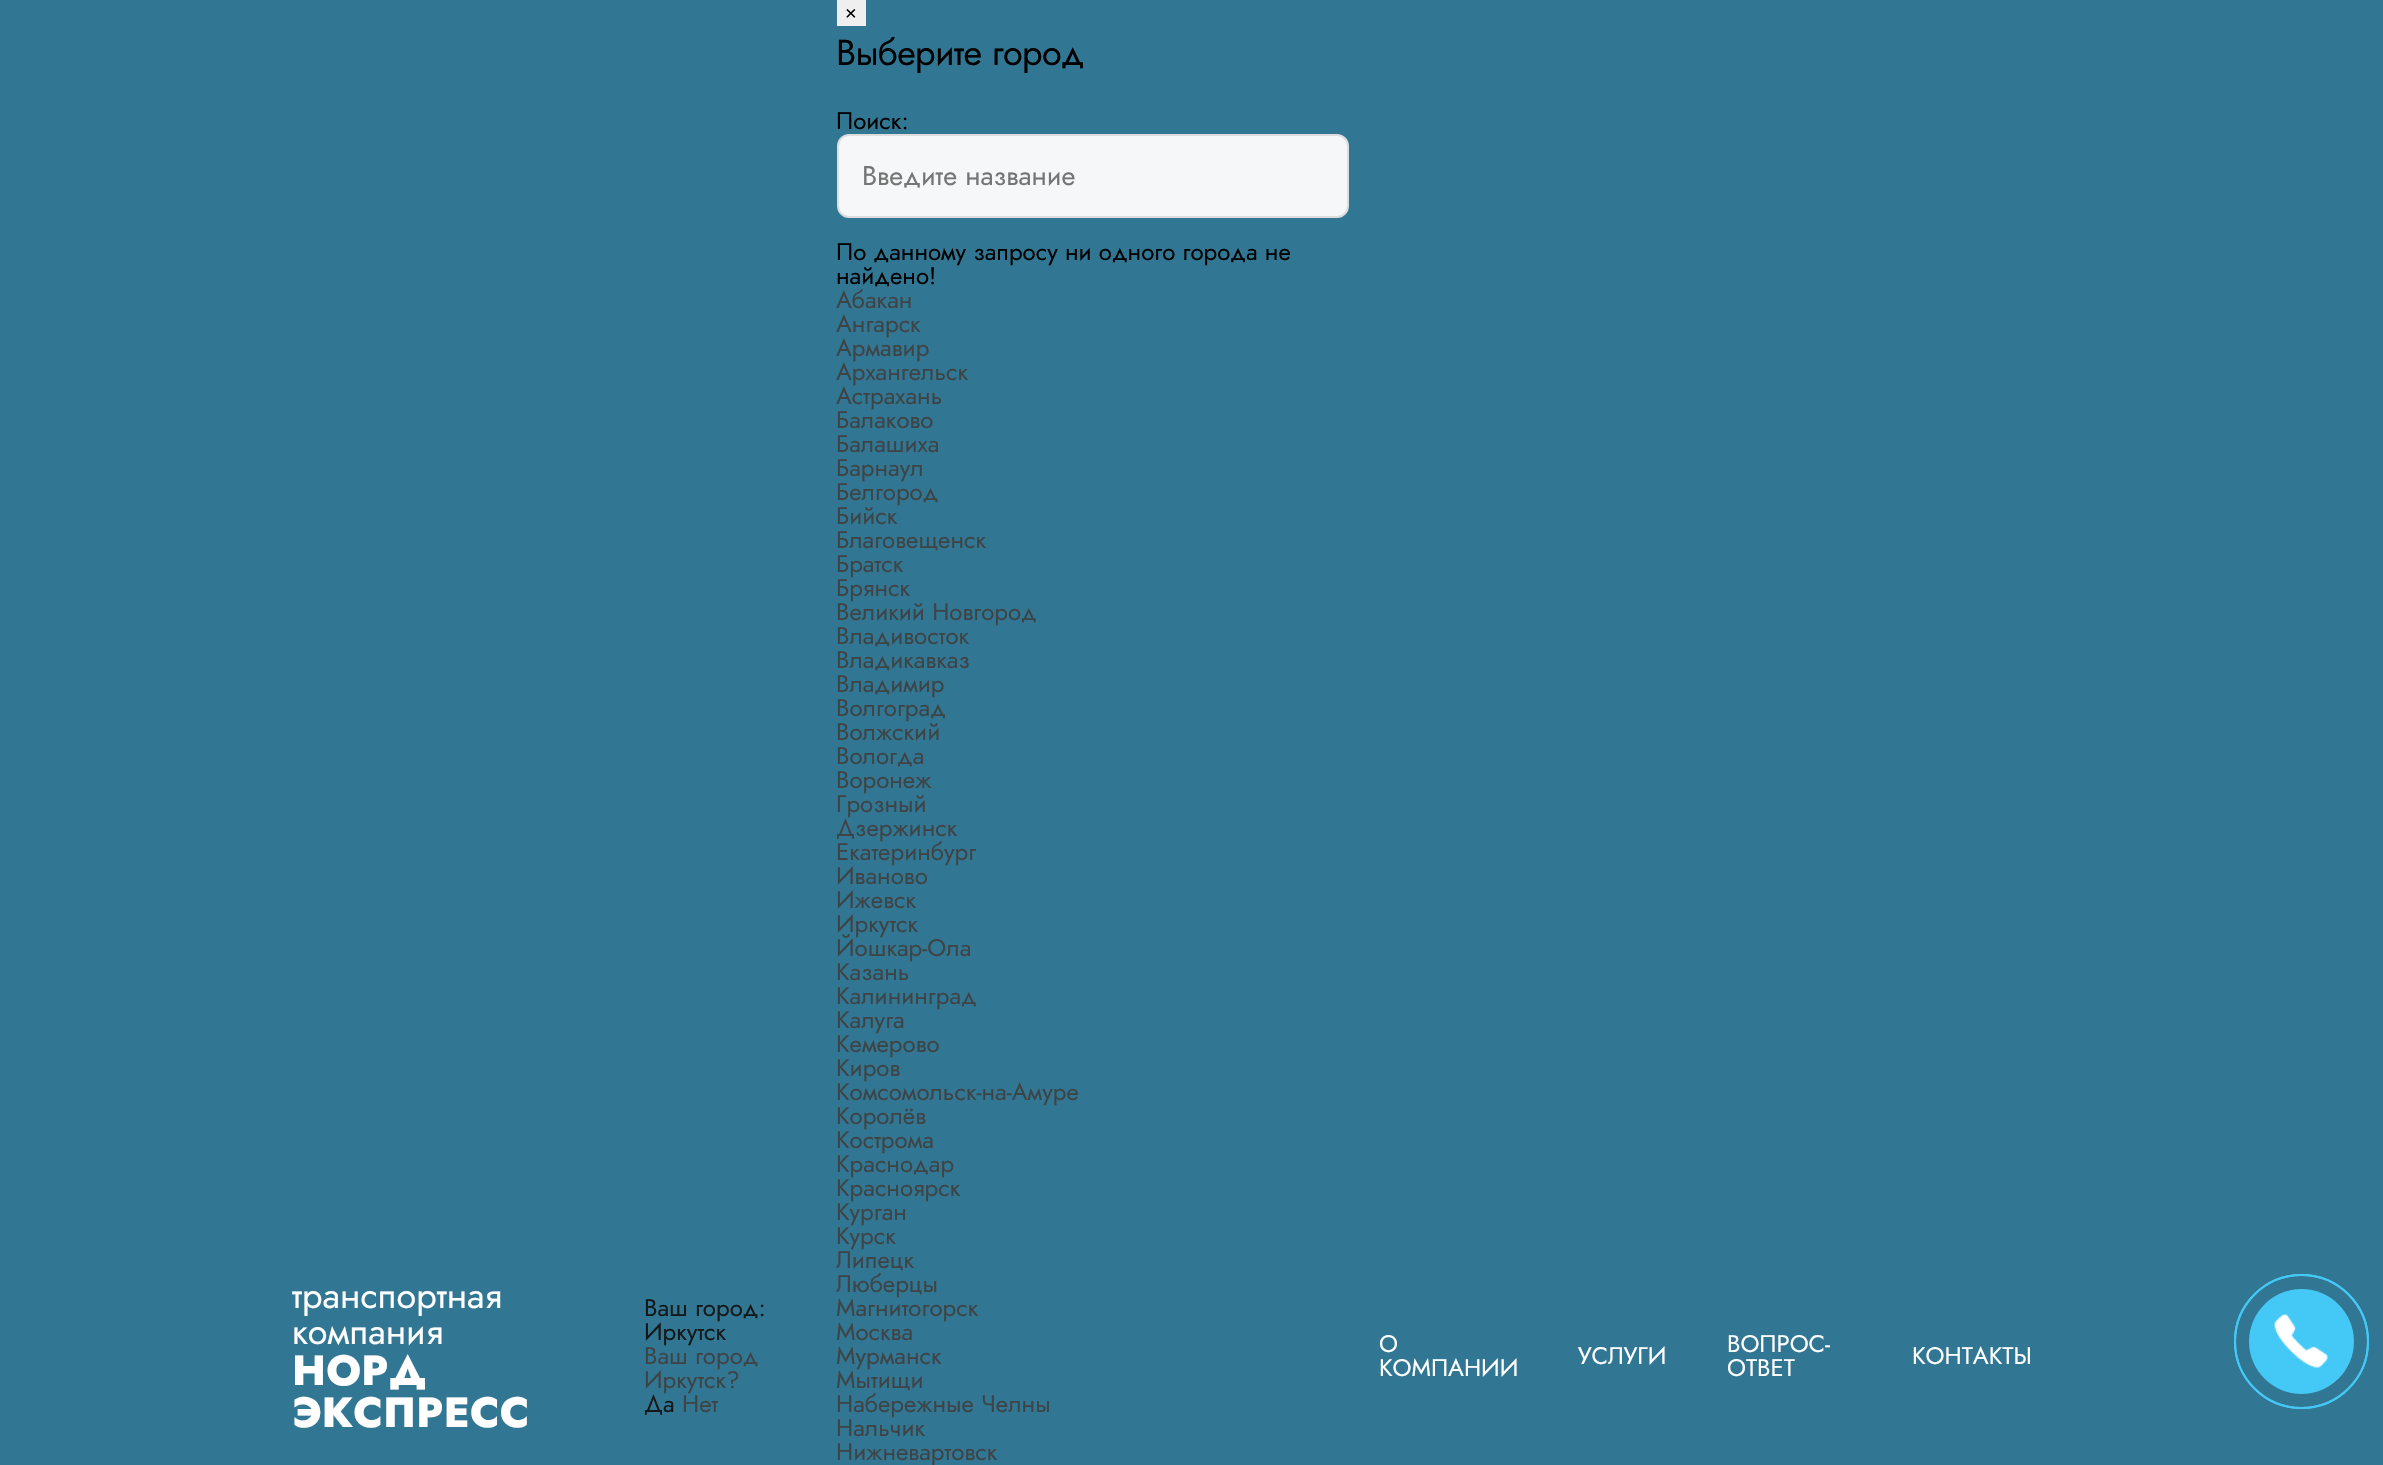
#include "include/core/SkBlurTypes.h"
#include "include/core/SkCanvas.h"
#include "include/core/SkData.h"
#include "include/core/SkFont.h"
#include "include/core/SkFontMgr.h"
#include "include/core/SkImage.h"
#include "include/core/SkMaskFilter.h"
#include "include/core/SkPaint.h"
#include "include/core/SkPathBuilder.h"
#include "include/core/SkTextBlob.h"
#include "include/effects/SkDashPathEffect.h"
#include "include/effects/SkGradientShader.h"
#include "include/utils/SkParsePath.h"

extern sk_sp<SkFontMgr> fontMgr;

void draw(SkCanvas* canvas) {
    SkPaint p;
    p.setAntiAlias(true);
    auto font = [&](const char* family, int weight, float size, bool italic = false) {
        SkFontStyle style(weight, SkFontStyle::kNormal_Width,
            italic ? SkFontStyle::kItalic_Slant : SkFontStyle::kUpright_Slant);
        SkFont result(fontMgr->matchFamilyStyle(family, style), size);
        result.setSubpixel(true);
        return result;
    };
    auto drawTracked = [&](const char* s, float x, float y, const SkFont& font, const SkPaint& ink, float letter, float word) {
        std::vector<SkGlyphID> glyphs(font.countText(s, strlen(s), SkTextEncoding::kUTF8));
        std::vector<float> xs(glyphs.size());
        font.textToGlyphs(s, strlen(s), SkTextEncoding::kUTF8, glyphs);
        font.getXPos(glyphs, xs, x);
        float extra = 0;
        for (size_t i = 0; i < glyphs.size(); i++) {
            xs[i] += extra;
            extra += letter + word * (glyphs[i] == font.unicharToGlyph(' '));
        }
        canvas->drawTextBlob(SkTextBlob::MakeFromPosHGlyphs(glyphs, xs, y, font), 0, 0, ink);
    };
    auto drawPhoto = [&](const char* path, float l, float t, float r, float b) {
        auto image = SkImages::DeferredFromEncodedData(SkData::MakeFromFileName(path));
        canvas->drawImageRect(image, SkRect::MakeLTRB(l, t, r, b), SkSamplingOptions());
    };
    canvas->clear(0xFF317692);
    auto font1 = font("Jost", 400, 36);
    p.setColor(0xFFFFFFFF);
    canvas->drawString("транспортная", 292, 1308, font1, p);
    canvas->drawString("компания", 292, 1344, font1, p);
    auto font2 = font("Jost", 800, 42);
    drawTracked("НОРД", 292, 1385, font2, p, 0.25f, 0);
    drawTracked("ЭКСПРЕСС", 292, 1427, font2, p, 0.25f, 0);
    auto font3 = font("Jost", 400, 24);
    p.setColor(0xFF141818);
    canvas->drawString("Ваш город:", 644, 1316, font3, p);
    canvas->drawString("Иркутск", 644, 1340, font3, p);
    p.setColor(0xFF3E4446);
    canvas->drawString("Ваш город", 644, 1364, font3, p);
    canvas->drawString("Иркутск?", 644, 1388, font3, p);
    p.setColor(0xFF141818);
    canvas->drawString("Да", 644, 1412, font3, p);
    p.setColor(0xFF3E4446);
    canvas->drawString("Нет", 682, 1412, font3, p);
    p.setColor(0xFFEFEFEF);
    canvas->drawRect(SkRect::MakeLTRB(837, 0, 866, 26), p);
    auto font4 = font("Liberation Sans", 400, 20);
    p.setColor(0xFF000000);
    canvas->drawString("×", 845, 20, font4, p);
    drawTracked("Выберите город", 836, 65, font1, p, -0.6f, 0);
    canvas->drawString("Поиск:", 836, 129, font3, p);
    p.setColor(0xFFF6F7F8);
    canvas->drawRoundRect(SkRect::MakeLTRB(838, 135, 1348, 217), 11, 11, p);
    p.setStyle(SkPaint::kStroke_Style);
    p.setStrokeWidth(2);
    p.setColor(0xFFDDDDDD);
    canvas->drawRoundRect(SkRect::MakeLTRB(838, 135, 1348, 217), 11, 11, p);
    auto font5 = font("Jost", 400, 27);
    p.setStyle(SkPaint::kFill_Style);
    p.setColor(0xFF757575);
    canvas->drawString("Введите название", 862, 185, font5, p);
    p.setColor(0xFF000000);
    canvas->drawString("По данному запросу ни одного города не", 836, 260, font3, p);
    canvas->drawString("найдено!", 836, 284, font3, p);
    p.setColor(0xFF3E4446);
    {
        const struct { const char* s; float x, y; } items[] = {
            {"Абакан", 836, 308},
            {"Ангарск", 836, 332},
            {"Армавир", 836, 356},
            {"Архангельск", 836, 380},
            {"Астрахань", 836, 404},
            {"Балаково", 836, 428},
            {"Балашиха", 836, 452},
            {"Барнаул", 836, 476},
            {"Белгород", 836, 500},
            {"Бийск", 836, 524},
            {"Благовещенск", 836, 548},
            {"Братск", 836, 572},
            {"Брянск", 836, 596},
            {"Великий Новгород", 836, 620},
            {"Владивосток", 836, 644},
            {"Владикавказ", 836, 668},
            {"Владимир", 836, 692},
            {"Волгоград", 836, 716},
            {"Волжский", 836, 740},
            {"Вологда", 836, 764},
            {"Воронеж", 836, 788},
            {"Грозный", 836, 812},
            {"Дзержинск", 836, 836},
            {"Екатеринбург", 836, 860},
            {"Иваново", 836, 884},
            {"Ижевск", 836, 908},
            {"Иркутск", 836, 932},
            {"Йошкар-Ола", 836, 956},
            {"Казань", 836, 980},
            {"Калининград", 836, 1004},
            {"Калуга", 836, 1028},
            {"Кемерово", 836, 1052},
            {"Киров", 836, 1076},
            {"Комсомольск-на-Амуре", 836, 1100},
            {"Королёв", 836, 1124},
            {"Кострома", 836, 1148},
            {"Краснодар", 836, 1172},
            {"Красноярск", 836, 1196},
            {"Курган", 836, 1220},
            {"Курск", 836, 1244},
            {"Липецк", 836, 1268},
            {"Люберцы", 836, 1292},
            {"Магнитогорск", 836, 1316},
            {"Москва", 836, 1340},
            {"Мурманск", 836, 1364},
            {"Мытищи", 836, 1388},
            {"Набережные Челны", 836, 1412},
            {"Нальчик", 836, 1436},
            {"Нижневартовск", 836, 1460},
        };
        for (auto [s, x, y] : items) {
            canvas->drawString(s, x, y, font3, p);
        }
    }
    p.setColor(0xFFFFFFFF);
    {
        const struct { const char* s; float x, y; } items[] = {
            {"О", 1379, 1352},
            {"КОМПАНИИ", 1379, 1376},
            {"УСЛУГИ", 1578, 1364},
            {"ВОПРОС-", 1727, 1352},
            {"ОТВЕТ", 1727, 1376},
            {"КОНТАКТЫ", 1912, 1364},
        };
        for (auto [s, x, y] : items) {
            canvas->drawString(s, x, y, font3, p);
        }
    }
    p.setColor(0xFF44C8F5);
    canvas->drawCircle(2301.5f, 1341.5f, 52.5f, p);
    drawPhoto("media/1.png", 2274, 1314, 2328, 1368);
    p.setStyle(SkPaint::kStroke_Style);
    canvas->drawCircle(2301.5f, 1341.5f, 66.5f, p);
    canvas->drawCircle(2301.5f, 1341.5f, 66.5f, p);
}
